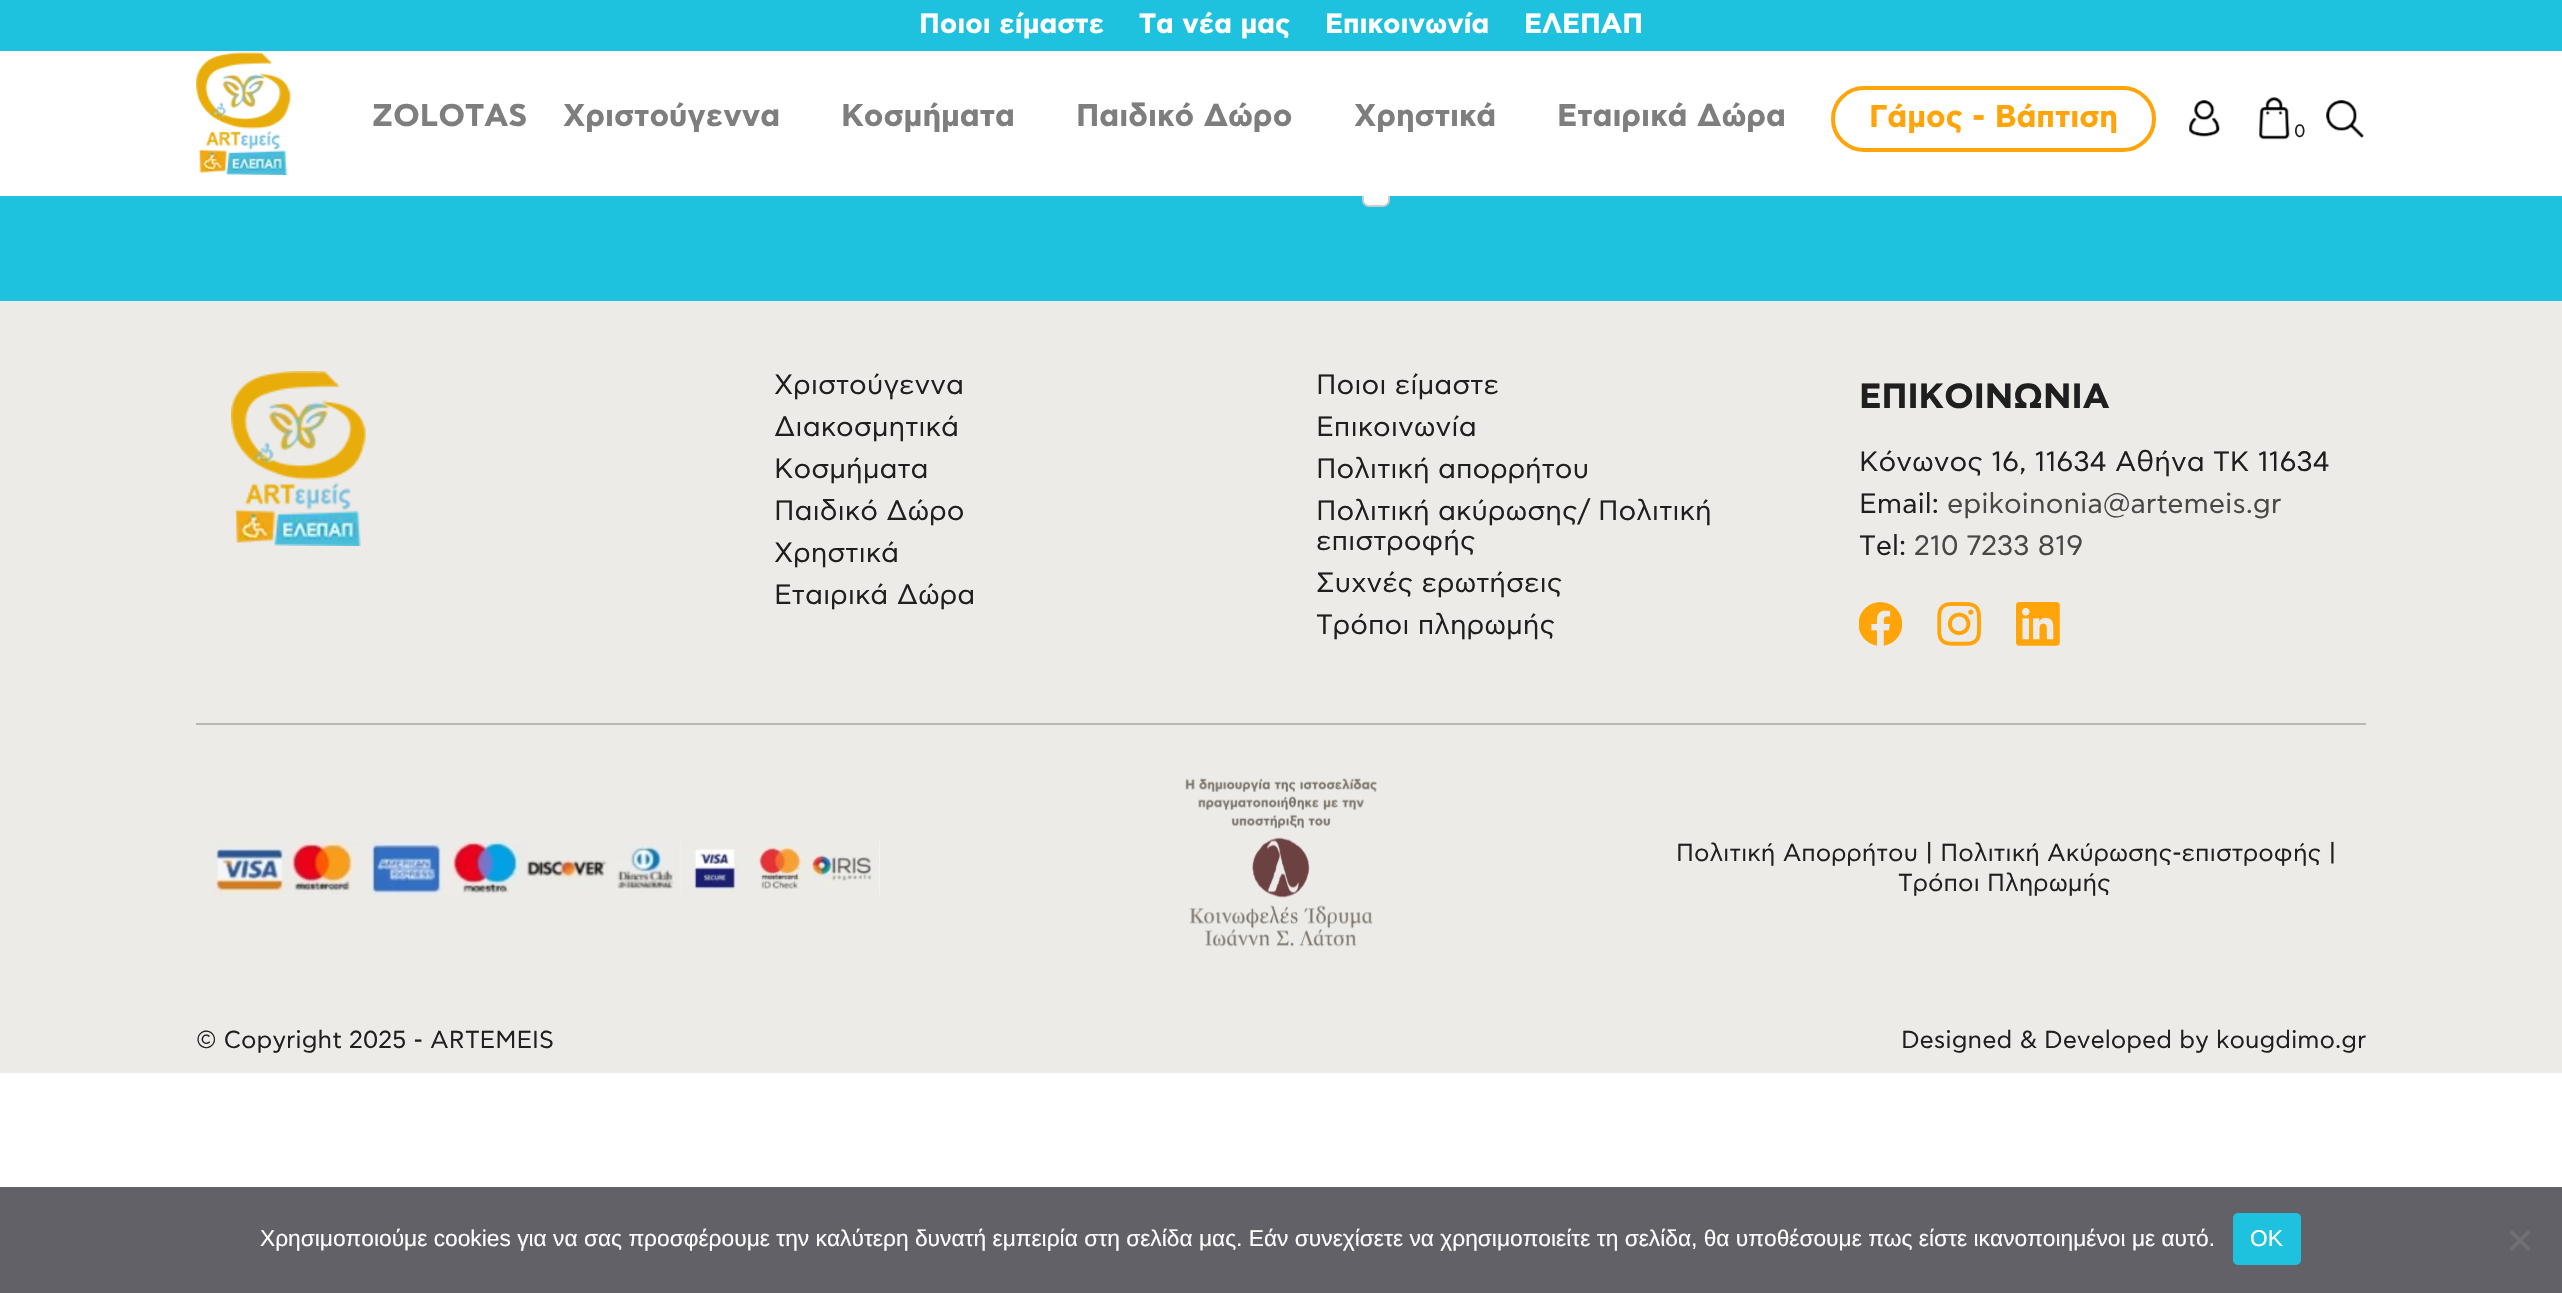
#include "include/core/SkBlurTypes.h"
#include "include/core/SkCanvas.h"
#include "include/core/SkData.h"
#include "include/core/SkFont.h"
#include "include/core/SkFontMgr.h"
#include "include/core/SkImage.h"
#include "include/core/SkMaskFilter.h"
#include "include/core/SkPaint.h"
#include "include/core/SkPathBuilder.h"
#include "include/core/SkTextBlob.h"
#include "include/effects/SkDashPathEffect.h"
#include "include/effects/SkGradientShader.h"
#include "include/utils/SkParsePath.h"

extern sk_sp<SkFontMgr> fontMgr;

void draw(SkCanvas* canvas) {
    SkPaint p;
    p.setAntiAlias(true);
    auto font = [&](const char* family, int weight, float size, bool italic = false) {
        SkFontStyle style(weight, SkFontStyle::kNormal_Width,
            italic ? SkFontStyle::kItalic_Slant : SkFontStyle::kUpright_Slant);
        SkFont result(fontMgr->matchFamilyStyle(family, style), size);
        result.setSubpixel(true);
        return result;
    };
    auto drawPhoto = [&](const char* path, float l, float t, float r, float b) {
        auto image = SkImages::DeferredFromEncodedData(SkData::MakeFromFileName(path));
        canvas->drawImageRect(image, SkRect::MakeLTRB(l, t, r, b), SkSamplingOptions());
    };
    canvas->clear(0xFFFFFFFF);
    p.setColor(0xFF1FC2DE);
    canvas->drawRect(SkRect::MakeLTRB(0, 196, 2562, 301), p);
    p.setColor(0xFFFFFFFF);
    canvas->drawRoundRect(SkRect::MakeLTRB(1363, 180, 1389, 206), 6, 6, p);
    p.setStyle(SkPaint::kStroke_Style);
    p.setStrokeWidth(2);
    p.setColor(0xFFCCCCCC);
    canvas->drawRoundRect(SkRect::MakeLTRB(1363, 180, 1389, 206), 6, 6, p);
    p.setStyle(SkPaint::kFill_Style);
    p.setColor(0xFFFFFFFF);
    canvas->drawRect(SkRect::MakeLTRB(1362, 179, 1390, 196), p);
    p.setColor(0xFF1FC2DE);
    canvas->drawRect(SkRect::MakeLTRB(0, 0, 2562, 51), p);
    auto font1 = font("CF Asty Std", 700, 28);
    p.setColor(0xFFFFFFFF);
    {
        const struct { const char* s; float x, y; } items[] = {
            {"Ποιοι είμαστε", 919, 33},
            {"Τα νέα μας", 1139, 33},
            {"Επικοινωνία", 1325, 33},
            {"ΕΛΕΠΑΠ", 1524, 33},
        };
        for (auto [s, x, y] : items) {
            canvas->drawString(s, x, y, font1, p);
        }
    }
    drawPhoto("media/1.png", 196, 52, 291, 175);
    auto font2 = font("CF Asty Std", 700, 31.5f);
    p.setColor(0xFF7E7E7E);
    {
        const struct { const char* s; float x, y; } items[] = {
            {"ZOLOTAS", 372, 126},
            {"Χριστούγεννα", 563, 126},
            {"Κοσμήματα", 841, 126},
            {"Παιδικό Δώρο", 1076, 126},
            {"Χρηστικά", 1354, 126},
            {"Εταιρικά Δώρα", 1557, 126},
        };
        for (auto [s, x, y] : items) {
            canvas->drawString(s, x, y, font2, p);
        }
    }
    p.setStyle(SkPaint::kStroke_Style);
    p.setStrokeWidth(4);
    p.setColor(0xFFFFA409);
    canvas->drawRoundRect(SkRect::MakeLTRB(1833, 88, 2154, 150), 31, 31, p);
    p.setStyle(SkPaint::kFill_Style);
    canvas->drawString("Γάμος - Βάπτιση", 1869, 127, font2, p);
    drawPhoto("media/2.png", 2189, 100, 2220, 137);
    drawPhoto("media/3.png", 2259, 97, 2290, 140);
    auto font3 = font("CF Asty Std", 400, 18);
    p.setColor(0xFF1F1F1F);
    canvas->drawString("0", 2294, 137, font3, p);
    drawPhoto("media/4.png", 2326, 100, 2364, 138);
    p.setColor(0xFFEDEBE7);
    canvas->drawRect(SkRect::MakeLTRB(0, 301, 2562, 1073), p);
    drawPhoto("media/5.png", 231, 371, 366, 546);
    auto font4 = font("CF Asty Std", 400, 28);
    p.setColor(0xFF1F1F1F);
    {
        const struct { const char* s; float x, y; } items[] = {
            {"Χριστούγεννα", 774, 394},
            {"Διακοσμητικά", 774, 436},
            {"Κοσμήματα", 774, 478},
            {"Παιδικό Δώρο", 774, 520},
            {"Χρηστικά", 774, 562},
            {"Εταιρικά Δώρα", 774, 604},
            {"Ποιοι είμαστε", 1316, 394},
            {"Επικοινωνία", 1316, 436},
            {"Πολιτική απορρήτου", 1316, 478},
            {"Πολιτική ακύρωσης/ Πολιτική", 1316, 520},
            {"επιστροφής", 1316, 550},
            {"Συχνές ερωτήσεις", 1316, 592},
            {"Τρόποι πληρωμής", 1316, 634},
        };
        for (auto [s, x, y] : items) {
            canvas->drawString(s, x, y, font4, p);
        }
    }
    auto font5 = font("CF Asty Std", 700, 35);
    canvas->drawString("ΕΠΙΚΟΙΝΩΝΙΑ", 1859, 408, font5, p);
    canvas->drawString("Κόνωνος 16, 11634 Αθήνα TK 11634", 1859, 471, font4, p);
    canvas->drawString("Email:", 1859, 513, font4, p);
    p.setColor(0xFF484847);
    canvas->drawString("epikoinonia@artemeis.gr", 1947, 513, font4, p);
    p.setColor(0xFF1F1F1F);
    canvas->drawString("Tel:", 1859, 555, font4, p);
    p.setColor(0xFF484847);
    canvas->drawString("210 7233 819", 1914, 555, font4, p);
    drawPhoto("media/6.png", 1859, 602, 1902, 646);
    drawPhoto("media/7.png", 1937, 602, 1981, 646);
    drawPhoto("media/8.png", 2016, 602, 2060, 646);
    p.setColor(0xFFBAB8B5);
    canvas->drawRect(SkRect::MakeLTRB(196, 723, 2366, 725), p);
    drawPhoto("media/9.png", 213, 841, 880, 895);
    drawPhoto("media/10.png", 1185, 778, 1377, 947);
    auto font6 = font("CF Asty Std", 400, 24.5f);
    p.setColor(0xFF1F1F1F);
    {
        const struct { const char* s; float x, y; } items[] = {
            {"Πολιτική Απορρήτου | Πολιτική Ακύρωσης-επιστροφής |", 1676, 861},
            {"Τρόποι Πληρωμής", 1898, 891},
            {"© Copyright 2025 - ARTEMEIS", 196, 1048},
            {"Designed & Developed by kougdimo.gr", 1901, 1048},
        };
        for (auto [s, x, y] : items) {
            canvas->drawString(s, x, y, font6, p);
        }
    }
    p.setColor(0xFF616167);
    canvas->drawRect(SkRect::MakeLTRB(0, 1187, 2562, 1293), p);
    auto font7 = font("Liberation Sans", 400, 22.75f);
    p.setColor(0xFFFFFFFF);
    canvas->drawString("Χρησιμοποιούμε cookies για να σας προσφέρουμε την καλύτερη δυνατή εμπειρία στη σελίδα μας. Εάν συνεχίσετε να χρησιμοποιείτε τη σελίδα, θα υποθέσουμε πως είστε ικανοποιημένοι με αυτό.", 260, 1246, font7, p);
    p.setColor(0xFF1FC2DE);
    canvas->drawRoundRect(SkRect::MakeLTRB(2233, 1213, 2301, 1265), 5, 5, p);
    p.setColor(0xFFFFFFFF);
    canvas->drawString("OK", 2250, 1246, font7, p);
    p.setColor(0xFF717174);
    canvas->drawPath(SkPathBuilder().moveTo(2528, 1230).lineTo(2530.5f, 1232.5f).lineTo(2512, 1251).lineTo(2509.5f, 1248.5f).close().detach(), p);
    canvas->drawPath(SkPathBuilder().moveTo(2509.5f, 1232.5f).lineTo(2512, 1230).lineTo(2530.5f, 1248.5f).lineTo(2528, 1251).close().detach(), p);
}
